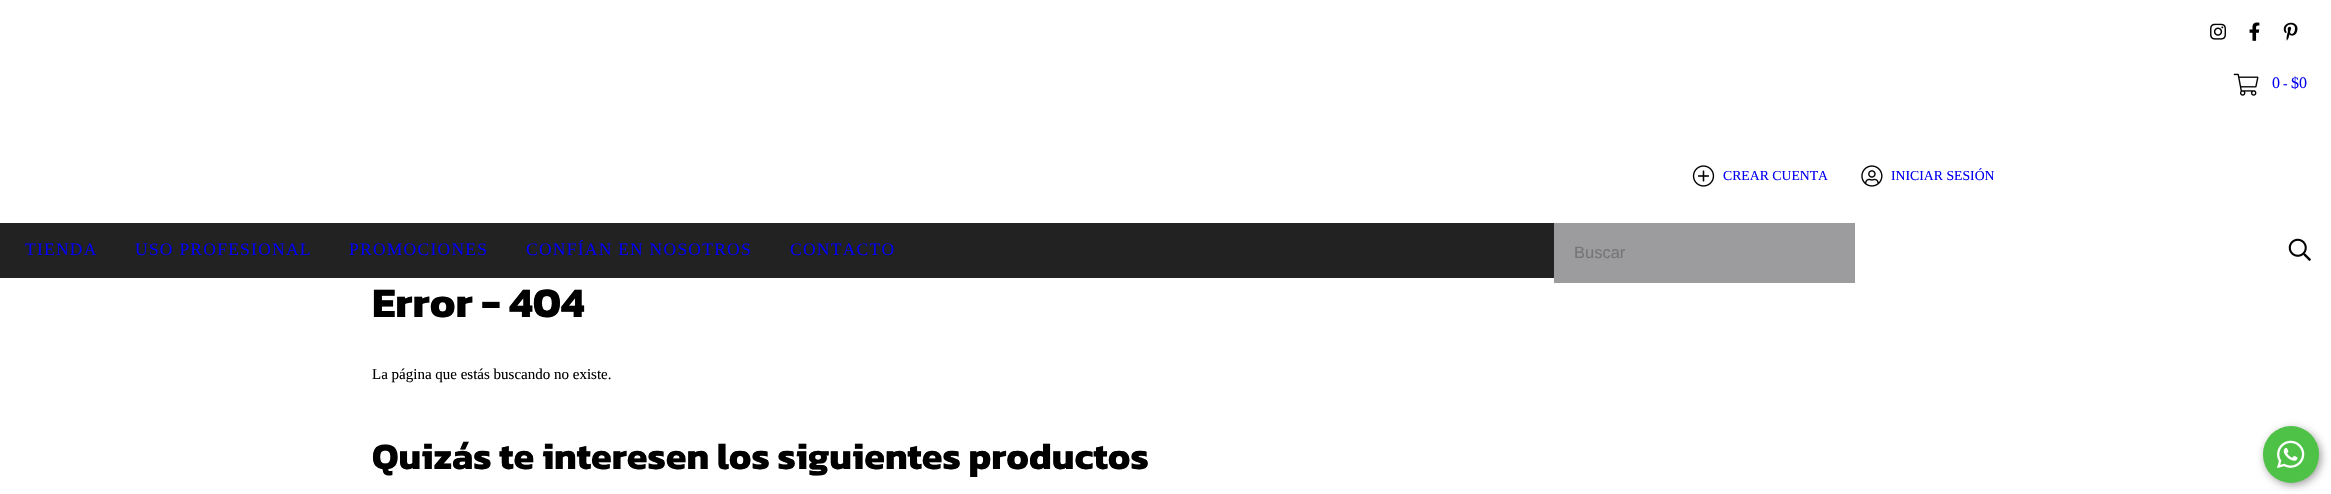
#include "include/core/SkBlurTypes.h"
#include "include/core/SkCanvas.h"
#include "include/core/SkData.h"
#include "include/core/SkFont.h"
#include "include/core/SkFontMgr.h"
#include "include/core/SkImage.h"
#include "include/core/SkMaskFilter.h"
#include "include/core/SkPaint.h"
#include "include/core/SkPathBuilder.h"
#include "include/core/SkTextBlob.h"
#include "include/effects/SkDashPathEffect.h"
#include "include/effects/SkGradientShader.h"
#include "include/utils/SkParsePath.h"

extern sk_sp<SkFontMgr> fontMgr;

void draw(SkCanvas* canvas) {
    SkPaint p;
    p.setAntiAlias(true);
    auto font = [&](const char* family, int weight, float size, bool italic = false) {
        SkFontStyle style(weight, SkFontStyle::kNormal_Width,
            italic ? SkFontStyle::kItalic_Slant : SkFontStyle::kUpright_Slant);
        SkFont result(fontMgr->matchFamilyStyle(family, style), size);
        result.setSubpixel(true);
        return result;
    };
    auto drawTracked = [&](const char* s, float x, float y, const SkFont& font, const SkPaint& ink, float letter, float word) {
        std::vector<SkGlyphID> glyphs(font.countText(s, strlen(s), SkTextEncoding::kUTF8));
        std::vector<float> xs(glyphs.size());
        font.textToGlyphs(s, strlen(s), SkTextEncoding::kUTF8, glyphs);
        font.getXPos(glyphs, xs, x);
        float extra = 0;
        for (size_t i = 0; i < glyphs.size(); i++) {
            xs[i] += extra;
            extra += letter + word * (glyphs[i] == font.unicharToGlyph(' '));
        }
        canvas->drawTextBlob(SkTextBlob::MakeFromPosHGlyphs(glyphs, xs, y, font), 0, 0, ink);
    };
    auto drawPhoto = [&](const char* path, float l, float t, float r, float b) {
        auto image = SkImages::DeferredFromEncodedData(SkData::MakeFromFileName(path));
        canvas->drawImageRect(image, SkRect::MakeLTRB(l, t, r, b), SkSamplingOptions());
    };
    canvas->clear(0xFFFFFFFF);
    drawPhoto("media/1.png", 2210, 23, 2226, 40);
    drawPhoto("media/2.png", 2249, 22, 2260, 41);
    drawPhoto("media/3.png", 2283, 22, 2298, 41);
    drawPhoto("media/4.png", 2233, 73, 2259, 96);
    auto font1 = font("Liberation Serif", 400, 16);
    p.setColor(0xFF0000EE);
    canvas->drawString("0", 2272, 88, font1, p);
    auto font2 = font("Liberation Serif", 400, 13.75f);
    canvas->drawString("-", 2283, 88, font2, p);
    canvas->drawString("$0", 2291, 88, font1, p);
    drawPhoto("media/5.png", 1692, 165, 1715, 187);
    canvas->drawString("CREAR CUENTA", 1723, 180, font2, p);
    drawPhoto("media/6.png", 1861, 165, 1883, 187);
    canvas->drawString("INICIAR SESIÓN", 1891, 180, font2, p);
    p.setColor(0xFF232222);
    canvas->drawRect(SkRect::MakeLTRB(0, 223, 1554, 278), p);
    auto font3 = font("Liberation Serif", 400, 17.5f);
    p.setColor(0xFF0000EE);
    {
        const struct { const char* s; float x, y; } items[] = {
            {"TIENDA", 25, 255},
            {"USO PROFESIONAL", 135, 255},
            {"PROMOCIONES", 349, 255},
            {"CONFÍAN EN NOSOTROS", 526, 255},
            {"CONTACTO", 790, 255},
        };
        for (auto [s, x, y] : items) {
            drawTracked(s, x, y, font3, p, 1.25f, 0);
        }
    }
    p.setColor(0xFF9C9B9D);
    canvas->drawRect(SkRect::MakeLTRB(1554, 223, 1855, 283), p);
    auto font4 = font("Liberation Sans", 400, 16.5f);
    p.setColor(0xFF757575);
    canvas->drawString("Buscar", 1574, 258, font4, p);
    drawPhoto("media/7.png", 2288, 238, 2311, 261);
    auto font5 = font("Kanit", 700, 42.5f);
    p.setColor(0xFF000000);
    canvas->drawString("Error - 404", 372, 317, font5, p);
    auto font6 = font("Liberation Serif", 400, 15);
    canvas->drawString("La página que estás buscando no existe.", 372, 379, font6, p);
    auto font7 = font("Kanit", 700, 37.5f);
    canvas->drawString("Quizás te interesen los siguientes productos", 372, 469, font7, p);
    p.setColor(0x66000000);
    p.setMaskFilter(SkMaskFilter::MakeBlur(kNormal_SkBlurStyle, 4));
    canvas->drawRoundRect(SkRect::MakeLTRB(2265, 429, 2321, 485), 28, 28, p);
    p.setMaskFilter(nullptr);
    p.setColor(0xFF4DC247);
    canvas->drawRoundRect(SkRect::MakeLTRB(2263, 426, 2319, 483), 28, 28, p);
    drawPhoto("media/8.png", 2277, 440, 2305, 468);
}
